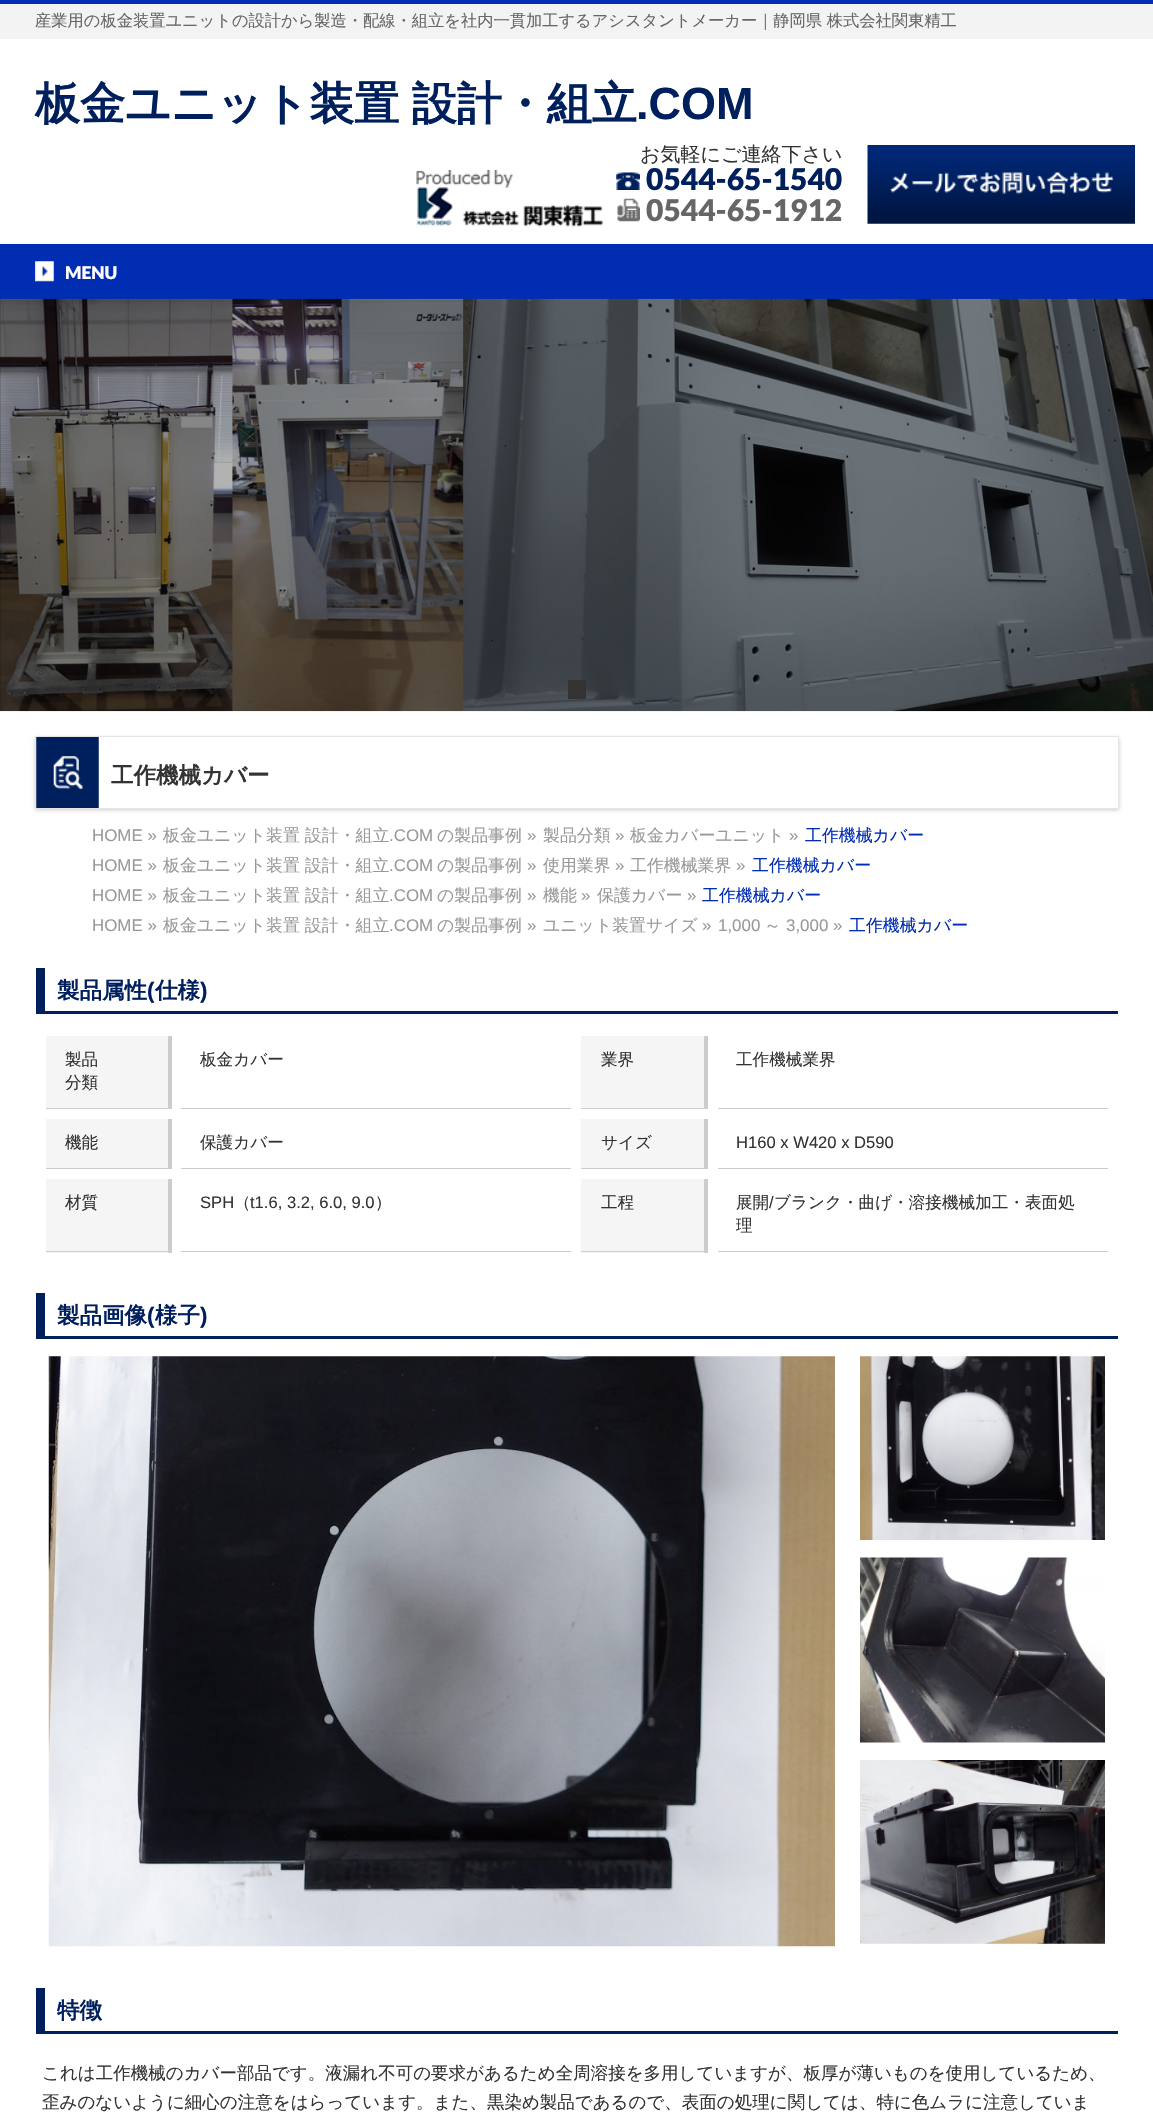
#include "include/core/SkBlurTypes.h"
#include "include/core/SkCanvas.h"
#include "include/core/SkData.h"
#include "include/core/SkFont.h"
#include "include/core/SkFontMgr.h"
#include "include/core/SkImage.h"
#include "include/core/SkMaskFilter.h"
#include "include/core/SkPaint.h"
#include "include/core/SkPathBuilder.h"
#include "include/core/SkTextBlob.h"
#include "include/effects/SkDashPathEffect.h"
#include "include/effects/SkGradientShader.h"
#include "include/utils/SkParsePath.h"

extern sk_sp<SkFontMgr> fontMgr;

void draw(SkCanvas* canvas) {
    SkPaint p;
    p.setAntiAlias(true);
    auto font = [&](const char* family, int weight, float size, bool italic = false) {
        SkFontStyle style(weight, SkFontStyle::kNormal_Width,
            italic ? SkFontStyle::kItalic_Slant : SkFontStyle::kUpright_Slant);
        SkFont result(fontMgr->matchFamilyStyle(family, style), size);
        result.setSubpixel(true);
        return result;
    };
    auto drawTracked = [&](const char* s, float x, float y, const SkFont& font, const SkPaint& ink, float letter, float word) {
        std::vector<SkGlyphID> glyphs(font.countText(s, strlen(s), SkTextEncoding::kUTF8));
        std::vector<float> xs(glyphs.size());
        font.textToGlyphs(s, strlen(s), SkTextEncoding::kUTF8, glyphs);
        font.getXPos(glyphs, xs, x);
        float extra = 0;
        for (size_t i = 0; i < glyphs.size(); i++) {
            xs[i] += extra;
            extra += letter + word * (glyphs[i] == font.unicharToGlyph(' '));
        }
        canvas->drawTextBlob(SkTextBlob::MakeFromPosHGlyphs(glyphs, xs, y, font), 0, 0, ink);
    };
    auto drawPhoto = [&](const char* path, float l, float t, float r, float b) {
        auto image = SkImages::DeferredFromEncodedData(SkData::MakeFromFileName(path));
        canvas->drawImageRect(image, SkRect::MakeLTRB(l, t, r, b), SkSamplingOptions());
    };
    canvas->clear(0xFFFFFFFF);
    p.setColor(0xFFF3F3F3);
    canvas->drawRect(SkRect::MakeLTRB(0, 4, 1153, 39), p);
    p.setColor(0xFF002DB2);
    canvas->drawRect(SkRect::MakeLTRB(0, 0, 1153, 4), p);
    auto font1 = font("WenQuanYi Zen Hei", 500, 16.25f);
    p.setColor(0xFF666666);
    canvas->drawString("産業用の板金装置ユニットの設計から製造・配線・組立を社内一貫加工するアシスタントメーカー｜静岡県 株式会社関東精工", 35, 26, font1, p);
    auto font2 = font("WenQuanYi Zen Hei", 700, 45);
    p.setColor(0xFF001F5D);
    drawTracked("板金ユニット装置 設計・組立", 35, 119, font2, p, 0, -1);
    auto font3 = font("Liberation Sans", 700, 45);
    canvas->drawString(".COM", 636, 119, font3, p);
    drawPhoto("media/1.png", 416, 170, 604, 227);
    auto font4 = font("WenQuanYi Zen Hei", 500, 20);
    p.setColor(0xFF333333);
    canvas->drawString("お気軽にご連絡下さい", 640, 161, font4, p);
    drawPhoto("media/2.png", 616, 172, 640, 190);
    auto font5 = font("Lato", 900, 30);
    p.setColor(0xFF001F5D);
    canvas->drawString("0544-65-1540", 646, 190, font5, p);
    drawPhoto("media/3.png", 617, 198, 640, 222);
    p.setColor(0xFF666666);
    canvas->drawString("0544-65-1912", 646, 221, font5, p);
    drawPhoto("media/4.png", 867, 145, 1135, 224);
    p.setColor(0xFF002DB2);
    canvas->drawRect(SkRect::MakeLTRB(0, 244, 1153, 299), p);
    drawPhoto("media/5.png", 35, 261, 54, 282);
    auto font6 = font("Lato", 900, 17.5f);
    p.setColor(0xFFFFFFFF);
    canvas->drawString("MENU", 65, 279, font6, p);
    drawPhoto("media/6.png", 0, 298, 1153, 712);
    p.setColor(0xFF333333);
    canvas->drawRect(SkRect::MakeLTRB(568, 680, 586, 699), p);
    canvas->save();
    canvas->clipPath(SkPathBuilder(SkPathFillType::kEvenOdd).moveTo(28, 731).lineTo(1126, 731).lineTo(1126, 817).lineTo(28, 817).close().moveTo(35, 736).lineTo(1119, 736).lineTo(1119, 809).lineTo(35, 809).close().detach(), true);
    p.setColor(0x33000000);
    p.setMaskFilter(SkMaskFilter::MakeBlur(kNormal_SkBlurStyle, 2));
    canvas->drawRect(SkRect::MakeLTRB(35, 738, 1119, 810), p);
    p.setMaskFilter(nullptr);
    canvas->restore();
    drawPhoto("media/7.png", 36, 737, 99, 808);
    p.setStyle(SkPaint::kStroke_Style);
    p.setStrokeWidth(1);
    p.setColor(0xFFE5E5E5);
    canvas->drawRect(SkRect::MakeLTRB(35.5f, 736.5f, 1118.5f, 808.5f), p);
    auto font7 = font("WenQuanYi Zen Hei", 700, 22.5f);
    p.setStyle(SkPaint::kFill_Style);
    p.setColor(0xFF333333);
    canvas->drawString("工作機械カバー", 111, 783, font7, p);
    auto font8 = font("Liberation Sans", 400, 16.9f);
    p.setColor(0xFF999999);
    canvas->drawString("HOME »", 92, 841, font8, p);
    auto font9 = font("WenQuanYi Zen Hei", 500, 16.9f);
    canvas->drawString("板金ユニット装置 設計・組立", 163, 841, font9, p);
    canvas->drawString(".COM", 389, 841, font8, p);
    canvas->drawString("の製品事例", 437, 841, font9, p);
    canvas->drawString("»", 527, 841, font8, p);
    canvas->drawString("製品分類", 543, 841, font9, p);
    canvas->drawString("»", 615, 841, font8, p);
    canvas->drawString("板金カバーユニット", 630, 841, font9, p);
    canvas->drawString("»", 789, 841, font8, p);
    p.setColor(0xFF002DB2);
    canvas->drawString("工作機械カバー", 805, 841, font9, p);
    p.setColor(0xFF999999);
    canvas->drawString("HOME »", 92, 871, font8, p);
    canvas->drawString("板金ユニット装置 設計・組立", 163, 871, font9, p);
    canvas->drawString(".COM", 389, 871, font8, p);
    canvas->drawString("の製品事例", 437, 871, font9, p);
    canvas->drawString("»", 527, 871, font8, p);
    canvas->drawString("使用業界", 543, 871, font9, p);
    canvas->drawString("»", 615, 871, font8, p);
    canvas->drawString("工作機械業界", 630, 871, font9, p);
    canvas->drawString("»", 736, 871, font8, p);
    p.setColor(0xFF002DB2);
    canvas->drawString("工作機械カバー", 752, 871, font9, p);
    p.setColor(0xFF999999);
    canvas->drawString("HOME »", 92, 901, font8, p);
    canvas->drawString("板金ユニット装置 設計・組立", 163, 901, font9, p);
    canvas->drawString(".COM", 389, 901, font8, p);
    canvas->drawString("の製品事例", 437, 901, font9, p);
    canvas->drawString("»", 527, 901, font8, p);
    canvas->drawString("機能", 543, 901, font9, p);
    canvas->drawString("»", 581, 901, font8, p);
    canvas->drawString("保護カバー", 597, 901, font9, p);
    canvas->drawString("»", 687, 901, font8, p);
    p.setColor(0xFF002DB2);
    canvas->drawString("工作機械カバー", 702, 901, font9, p);
    p.setColor(0xFF999999);
    canvas->drawString("HOME »", 92, 931, font8, p);
    canvas->drawString("板金ユニット装置 設計・組立", 163, 931, font9, p);
    canvas->drawString(".COM", 389, 931, font8, p);
    canvas->drawString("の製品事例", 437, 931, font9, p);
    canvas->drawString("»", 527, 931, font8, p);
    canvas->drawString("ユニット装置サイズ", 543, 931, font9, p);
    canvas->drawString("»", 702, 931, font8, p);
    canvas->drawString("1,000", 718, 931, font8, p);
    canvas->drawString("～", 764, 931, font9, p);
    canvas->drawString("3,000 »", 786, 931, font8, p);
    p.setColor(0xFF002DB2);
    canvas->drawString("工作機械カバー", 849, 931, font9, p);
    p.setColor(0xFF001F5D);
    canvas->drawRect(SkRect::MakeLTRB(45, 1011, 1118, 1014), p);
    canvas->drawRect(SkRect::MakeLTRB(36, 968, 45, 1014), p);
    canvas->drawString("製品属性", 57, 998, font7, p);
    auto font10 = font("Liberation Sans", 700, 22.5f);
    canvas->drawString("(", 147, 998, font10, p);
    canvas->drawString("仕様", 155, 998, font7, p);
    canvas->drawString(")", 200, 998, font10, p);
    {
        const struct { float l, t, r, b; SkColor color; } items[] = {
            {46, 1036, 168, 1108, 0xFFF5F5F5},
            {168, 1036, 172, 1109, 0xFFCCCCCC},
            {46, 1108, 171, 1109, 0xFFCCCCCC},
        };
        for (auto [l, t, r, b, color] : items) {
            p.setColor(color);
            canvas->drawRect(SkRect::MakeLTRB(l, t, r, b), p);
        }
    }
    auto font11 = font("WenQuanYi Zen Hei", 500, 16.6f);
    p.setColor(0xFF333333);
    canvas->drawString("製品", 65, 1065, font11, p);
    canvas->drawString("分類", 65, 1088, font11, p);
    p.setColor(0xFFCCCCCC);
    canvas->drawRect(SkRect::MakeLTRB(181, 1108, 571, 1109), p);
    p.setColor(0xFF333333);
    canvas->drawString("板金カバー", 200, 1065, font11, p);
    {
        const struct { float l, t, r, b; SkColor color; } items[] = {
            {581, 1036, 704, 1108, 0xFFF5F5F5},
            {704, 1036, 708, 1109, 0xFFCCCCCC},
            {581, 1108, 708, 1109, 0xFFCCCCCC},
        };
        for (auto [l, t, r, b, color] : items) {
            p.setColor(color);
            canvas->drawRect(SkRect::MakeLTRB(l, t, r, b), p);
        }
    }
    p.setColor(0xFF333333);
    canvas->drawString("業界", 601, 1065, font11, p);
    p.setColor(0xFFCCCCCC);
    canvas->drawRect(SkRect::MakeLTRB(718, 1108, 1108, 1109), p);
    p.setColor(0xFF333333);
    canvas->drawString("工作機械業界", 736, 1065, font11, p);
    {
        const struct { float l, t, r, b; SkColor color; } items[] = {
            {46, 1119, 168, 1168, 0xFFF5F5F5},
            {168, 1119, 172, 1169, 0xFFCCCCCC},
            {46, 1168, 171, 1169, 0xFFCCCCCC},
        };
        for (auto [l, t, r, b, color] : items) {
            p.setColor(color);
            canvas->drawRect(SkRect::MakeLTRB(l, t, r, b), p);
        }
    }
    p.setColor(0xFF333333);
    canvas->drawString("機能", 65, 1148, font11, p);
    p.setColor(0xFFCCCCCC);
    canvas->drawRect(SkRect::MakeLTRB(181, 1168, 571, 1169), p);
    p.setColor(0xFF333333);
    canvas->drawString("保護カバー", 200, 1148, font11, p);
    {
        const struct { float l, t, r, b; SkColor color; } items[] = {
            {581, 1119, 704, 1168, 0xFFF5F5F5},
            {704, 1119, 708, 1169, 0xFFCCCCCC},
            {581, 1168, 708, 1169, 0xFFCCCCCC},
        };
        for (auto [l, t, r, b, color] : items) {
            p.setColor(color);
            canvas->drawRect(SkRect::MakeLTRB(l, t, r, b), p);
        }
    }
    p.setColor(0xFF333333);
    canvas->drawString("サイズ", 601, 1148, font11, p);
    p.setColor(0xFFCCCCCC);
    canvas->drawRect(SkRect::MakeLTRB(718, 1168, 1108, 1169), p);
    auto font12 = font("Liberation Sans", 400, 16.6f);
    p.setColor(0xFF333333);
    canvas->drawString("H160 x W420 x D590", 736, 1148, font12, p);
    {
        const struct { float l, t, r, b; SkColor color; } items[] = {
            {46, 1179, 168, 1253, 0xFFF5F5F5},
            {168, 1179, 172, 1253, 0xFFCCCCCC},
            {46, 1251, 171, 1252, 0xFFCCCCCC},
        };
        for (auto [l, t, r, b, color] : items) {
            p.setColor(color);
            canvas->drawRect(SkRect::MakeLTRB(l, t, r, b), p);
        }
    }
    p.setColor(0xFF333333);
    canvas->drawString("材質", 65, 1208, font11, p);
    p.setColor(0xFFCCCCCC);
    canvas->drawRect(SkRect::MakeLTRB(181, 1251, 571, 1252), p);
    p.setColor(0xFF333333);
    canvas->drawString("SPH", 200, 1208, font12, p);
    canvas->drawString("（", 234, 1208, font11, p);
    canvas->drawString("t1.6, 3.2, 6.0, 9.0", 250, 1208, font12, p);
    canvas->drawString("）", 375, 1208, font11, p);
    {
        const struct { float l, t, r, b; SkColor color; } items[] = {
            {581, 1179, 704, 1253, 0xFFF5F5F5},
            {704, 1179, 708, 1253, 0xFFCCCCCC},
            {581, 1251, 708, 1252, 0xFFCCCCCC},
        };
        for (auto [l, t, r, b, color] : items) {
            p.setColor(color);
            canvas->drawRect(SkRect::MakeLTRB(l, t, r, b), p);
        }
    }
    p.setColor(0xFF333333);
    canvas->drawString("工程", 601, 1208, font11, p);
    p.setColor(0xFFCCCCCC);
    canvas->drawRect(SkRect::MakeLTRB(718, 1251, 1108, 1252), p);
    p.setColor(0xFF333333);
    canvas->drawString("展開", 736, 1208, font11, p);
    canvas->drawString("/", 769, 1208, font12, p);
    canvas->drawString("ブランク・曲げ・溶接機械加工・表面処", 774, 1208, font11, p);
    canvas->drawString("理", 736, 1231, font11, p);
    p.setColor(0xFF001F5D);
    canvas->drawRect(SkRect::MakeLTRB(45, 1336, 1118, 1339), p);
    canvas->drawRect(SkRect::MakeLTRB(36, 1293, 45, 1339), p);
    canvas->drawString("製品画像", 57, 1323, font7, p);
    canvas->drawString("(", 147, 1323, font10, p);
    canvas->drawString("様子", 155, 1323, font7, p);
    canvas->drawString(")", 200, 1323, font10, p);
    drawPhoto("media/8.png", 48, 1356, 835, 1947);
    drawPhoto("media/9.png", 860, 1356, 1105, 1540);
    drawPhoto("media/10.png", 860, 1557, 1105, 1743);
    drawPhoto("media/11.png", 860, 1760, 1105, 1944);
    canvas->drawRect(SkRect::MakeLTRB(45, 2031, 1118, 2034), p);
    canvas->drawRect(SkRect::MakeLTRB(36, 1988, 45, 2034), p);
    canvas->drawString("特徴", 57, 2018, font7, p);
    auto font13 = font("WenQuanYi Zen Hei", 500, 17.5f);
    p.setColor(0xFF333333);
    canvas->drawString("これは工作機械のカバー部品です。液漏れ不可の要求があるため全周溶接を多用していますが、板厚が薄いものを使用しているため、", 42, 2079, font13, p);
    canvas->drawString("歪みのないように細心の注意をはらっています。また、黒染め製品であるので、表面の処理に関しては、特に色ムラに注意していま", 42, 2108, font13, p);
}
